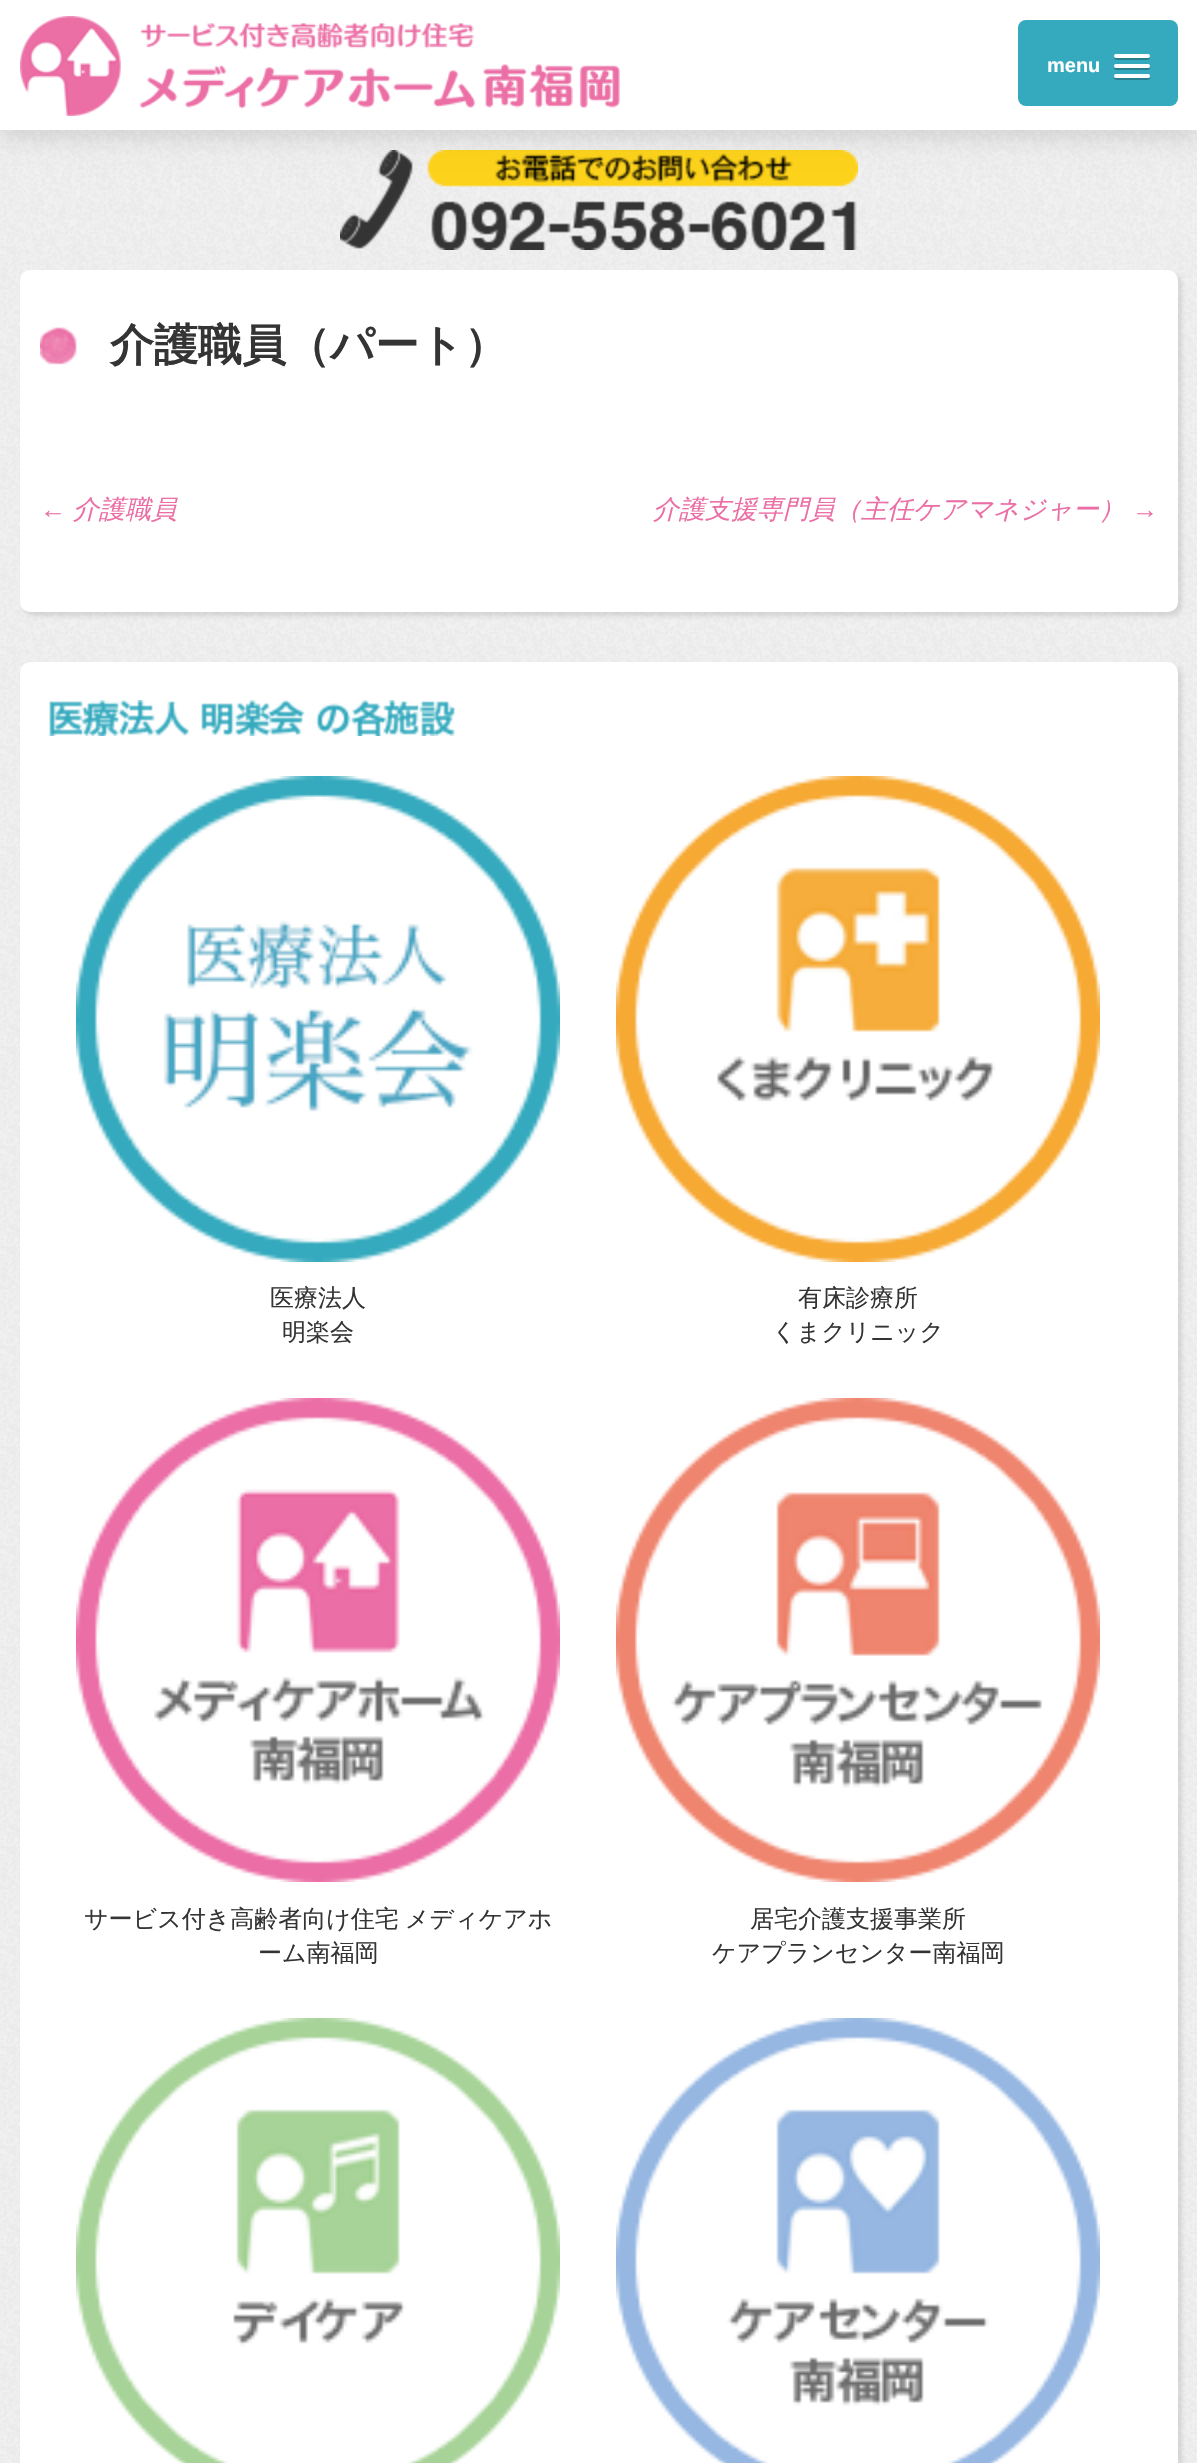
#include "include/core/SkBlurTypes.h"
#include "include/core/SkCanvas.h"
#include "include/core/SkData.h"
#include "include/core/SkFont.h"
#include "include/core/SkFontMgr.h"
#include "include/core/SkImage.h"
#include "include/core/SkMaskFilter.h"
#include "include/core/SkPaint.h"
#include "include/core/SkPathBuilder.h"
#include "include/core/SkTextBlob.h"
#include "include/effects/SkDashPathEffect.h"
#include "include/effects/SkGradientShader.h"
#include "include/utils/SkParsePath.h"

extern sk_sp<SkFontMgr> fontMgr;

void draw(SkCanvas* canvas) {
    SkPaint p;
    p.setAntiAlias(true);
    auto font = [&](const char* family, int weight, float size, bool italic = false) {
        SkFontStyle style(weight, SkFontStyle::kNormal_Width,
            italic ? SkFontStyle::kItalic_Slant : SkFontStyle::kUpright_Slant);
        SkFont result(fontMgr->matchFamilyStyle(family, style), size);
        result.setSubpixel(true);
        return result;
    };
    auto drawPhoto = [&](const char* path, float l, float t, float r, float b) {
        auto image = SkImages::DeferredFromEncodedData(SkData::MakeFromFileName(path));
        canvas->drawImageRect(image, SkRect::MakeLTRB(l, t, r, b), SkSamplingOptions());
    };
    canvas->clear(0xFFFFFFFF);
    drawPhoto("media/1.png", 0, 130, 1197, 2463);
    drawPhoto("media/3.png", 340, 150, 858, 250);
    p.setColor(0x1A000000);
    p.setMaskFilter(SkMaskFilter::MakeBlur(kNormal_SkBlurStyle, 10));
    canvas->drawRect(SkRect::MakeLTRB(0, 10, 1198, 140), p);
    p.setMaskFilter(nullptr);
    p.setColor(0xFFFFFFFF);
    canvas->drawRect(SkRect::MakeLTRB(0, 0, 1197, 130), p);
    p.setColor(0xFF35AABE);
    canvas->drawRoundRect(SkRect::MakeLTRB(1018, 20, 1178, 106), 8, 8, p);
    auto font1 = font("Liberation Sans", 700, 20);
    p.setColor(0xFFFFFFFF);
    canvas->drawString("menu", 1047, 72, font1, p);
    p.setColor(0xFF28808F);
    canvas->drawPath(SkPathBuilder().moveTo(1114.5f, 57).cubicTo(1112, 61, 1121, 60, 1121.5f, 60).lineTo(1142.5f, 60).cubicTo(1143, 60, 1152, 61, 1149.5f, 57).cubicTo(1149.5f, 57.5f, 1148.5f, 58, 1148, 58).lineTo(1116, 58).cubicTo(1115.5f, 58, 1114.5f, 57.5f, 1114.5f, 57).close().detach(), p);
    p.setColor(0xFFFFFFFF);
    canvas->drawRoundRect(SkRect::MakeLTRB(1114, 54, 1150, 58), 2, 2, p);
    p.setColor(0xFF28808F);
    canvas->drawPath(SkPathBuilder().moveTo(1114.5f, 67).cubicTo(1112, 71, 1121, 70, 1121.5f, 70).lineTo(1142.5f, 70).cubicTo(1143, 70, 1152, 71, 1149.5f, 67).cubicTo(1149.5f, 67.5f, 1148.5f, 68, 1148, 68).lineTo(1116, 68).cubicTo(1115.5f, 68, 1114.5f, 67.5f, 1114.5f, 67).close().detach(), p);
    p.setColor(0xFFFFFFFF);
    canvas->drawRoundRect(SkRect::MakeLTRB(1114, 64, 1150, 68), 2, 2, p);
    p.setColor(0xFF28808F);
    canvas->drawPath(SkPathBuilder().moveTo(1114.5f, 77).cubicTo(1112, 81, 1121, 80, 1121.5f, 80).lineTo(1142.5f, 80).cubicTo(1143, 80, 1152, 81, 1149.5f, 77).cubicTo(1149.5f, 77.5f, 1148.5f, 78, 1148, 78).lineTo(1116, 78).cubicTo(1115.5f, 78, 1114.5f, 77.5f, 1114.5f, 77).close().detach(), p);
    p.setColor(0xFFFFFFFF);
    canvas->drawRoundRect(SkRect::MakeLTRB(1114, 74, 1150, 78), 2, 2, p);
    drawPhoto("media/2.png", 20, 16, 620, 116);
    p.setColor(0x1A000000);
    p.setMaskFilter(SkMaskFilter::MakeBlur(kNormal_SkBlurStyle, 2));
    canvas->drawRoundRect(SkRect::MakeLTRB(24, 274, 1182, 616), 10, 10, p);
    p.setMaskFilter(nullptr);
    p.setColor(0xFFFFFFFF);
    canvas->drawRoundRect(SkRect::MakeLTRB(20, 270, 1178, 612), 10, 10, p);
    drawPhoto("media/4.png", 40, 327, 77, 365);
    auto font2 = font("WenQuanYi Zen Hei", 700, 44);
    p.setColor(0xFF343434);
    canvas->drawString("介護職員（パート）", 110, 360, font2, p);
    auto font3 = font("Liberation Sans", 400, 26, true);
    p.setColor(0xFFEB6EA5);
    canvas->drawString("←", 40, 518, font3, p);
    auto font4 = font("WenQuanYi Zen Hei", 500, 26, true);
    canvas->drawString("介護職員", 73, 518, font4, p);
    canvas->drawString("介護支援専門員（主任ケアマネジャー）", 653, 518, font4, p);
    canvas->drawString("→", 1132, 518, font3, p);
    p.setColor(0x1A000000);
    p.setMaskFilter(SkMaskFilter::MakeBlur(kNormal_SkBlurStyle, 2));
    canvas->drawRoundRect(SkRect::MakeLTRB(24, 666, 1182, 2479), 10, 10, p);
    p.setMaskFilter(nullptr);
    p.setColor(0xFFFFFFFF);
    canvas->drawRoundRect(SkRect::MakeLTRB(20, 662, 1178, 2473), 10, 10, p);
    drawPhoto("media/5.png", 48, 700, 456, 736);
    drawPhoto("media/6.png", 76, 776, 560, 1262);
    auto font5 = font("WenQuanYi Zen Hei", 500, 24);
    p.setColor(0xFF343434);
    canvas->drawString("医療法人", 270, 1306, font5, p);
    canvas->drawString("明楽会", 282, 1340, font5, p);
    drawPhoto("media/7.png", 616, 776, 1100, 1262);
    canvas->drawString("有床診療所", 798, 1306, font5, p);
    canvas->drawString("くまクリニック", 772, 1340, font5, p);
    drawPhoto("media/8.png", 76, 1398, 560, 1882);
    {
        const struct { const char* s; float x, y; } items[] = {
            {"サービス付き高齢者向け住宅", 84, 1927},
            {"メディケアホ", 405, 1927},
            {"ーム南福岡", 258, 1961},
        };
        for (auto [s, x, y] : items) {
            canvas->drawString(s, x, y, font5, p);
        }
    }
    drawPhoto("media/9.png", 616, 1398, 1100, 1882);
    canvas->drawString("居宅介護支援事業所", 750, 1927, font5, p);
    canvas->drawString("ケアプランセンター南福岡", 712, 1961, font5, p);
    drawPhoto("media/10.png", 76, 2018, 560, 2463);
    drawPhoto("media/11.png", 616, 2018, 1100, 2463);
}
